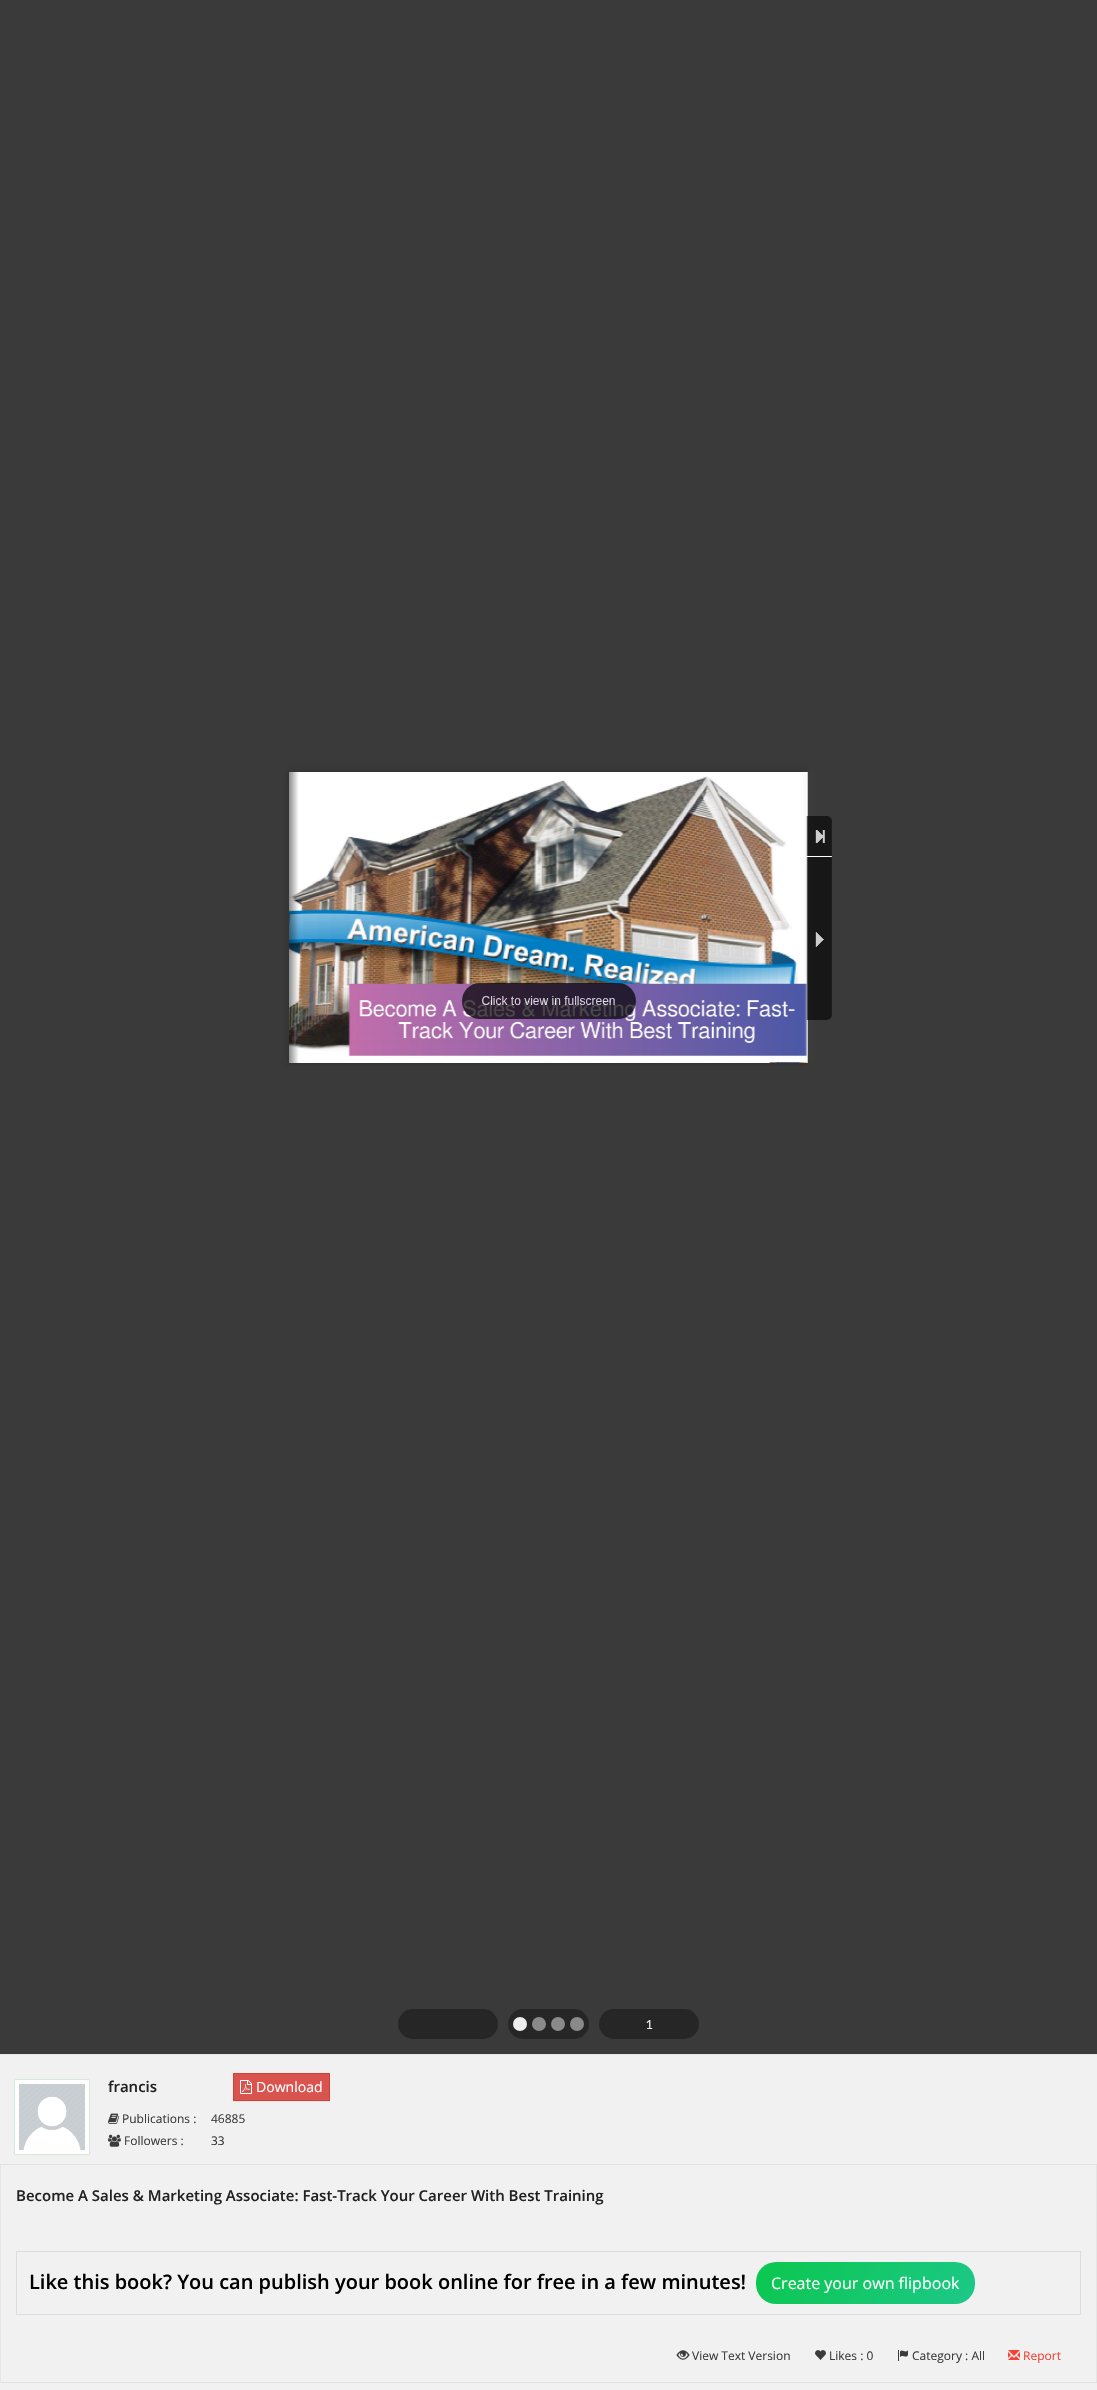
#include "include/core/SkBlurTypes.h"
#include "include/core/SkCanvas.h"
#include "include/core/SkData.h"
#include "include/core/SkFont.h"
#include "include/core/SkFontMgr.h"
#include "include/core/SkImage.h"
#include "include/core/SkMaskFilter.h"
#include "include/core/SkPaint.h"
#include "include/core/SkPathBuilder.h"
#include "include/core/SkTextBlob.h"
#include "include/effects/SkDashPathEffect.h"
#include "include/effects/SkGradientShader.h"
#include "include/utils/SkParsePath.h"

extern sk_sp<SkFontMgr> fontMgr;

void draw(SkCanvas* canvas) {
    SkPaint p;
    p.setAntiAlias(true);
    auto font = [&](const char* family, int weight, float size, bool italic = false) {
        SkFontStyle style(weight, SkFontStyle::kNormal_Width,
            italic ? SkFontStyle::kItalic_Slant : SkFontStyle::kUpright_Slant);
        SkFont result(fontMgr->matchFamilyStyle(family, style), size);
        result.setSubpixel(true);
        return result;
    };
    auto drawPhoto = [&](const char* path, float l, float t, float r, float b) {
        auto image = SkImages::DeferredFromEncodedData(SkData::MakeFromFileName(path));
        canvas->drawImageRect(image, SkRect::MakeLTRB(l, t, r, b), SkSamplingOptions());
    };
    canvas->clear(0xFFFFFFFF);
    drawPhoto("media/1.png", 0, 0, 1097, 2054);
    {
        const struct { float l, t, r, b; SkColor color; } items[] = {
            {0, 2055, 1097, 2390, 0xFFF1F1F1},
            {0, 2054, 1097, 2055, 0xFFE6E6E6},
            {0, 2164, 1097, 2165, 0xFFE1E1E1},
        };
        for (auto [l, t, r, b, color] : items) {
            p.setColor(color);
            canvas->drawRect(SkRect::MakeLTRB(l, t, r, b), p);
        }
    }
    p.setColor(0xFF5CB85C);
    p.setMaskFilter(SkMaskFilter::MakeBlur(kNormal_SkBlurStyle, 0.5f));
    canvas->drawRect(SkRect::MakeLTRB(15, 2080, 89, 2154), p);
    p.setMaskFilter(nullptr);
    p.setStyle(SkPaint::kStroke_Style);
    p.setStrokeWidth(4);
    p.setColor(0xFFFFFFFF);
    canvas->drawRect(SkRect::MakeLTRB(17, 2082, 87, 2152), p);
    drawPhoto("media/2.png", 19, 2084, 85, 2150);
    auto font1 = font("Open Sans", 600, 15);
    p.setStyle(SkPaint::kFill_Style);
    p.setColor(0xFF222222);
    canvas->drawString("francis", 108, 2092, font1, p);
    p.setColor(0xFFE5E5E5);
    canvas->drawRect(SkRect::MakeLTRB(233, 2101, 330, 2102), p);
    p.setColor(0xFFD9534F);
    canvas->drawRect(SkRect::MakeLTRB(233.5f, 2073.5f, 329.5f, 2100.5f), p);
    p.setStyle(SkPaint::kStroke_Style);
    p.setStrokeWidth(1);
    p.setColor(0xFFD43F3A);
    canvas->drawRect(SkRect::MakeLTRB(233.5f, 2073.5f, 329.5f, 2100.5f), p);
    drawPhoto("media/3.png", 240, 2080, 252, 2094);
    auto font2 = font("Open Sans", 400, 14);
    p.setStyle(SkPaint::kFill_Style);
    p.setColor(0xFFFFFFFF);
    canvas->drawString("Download", 256, 2092, font2, p);
    drawPhoto("media/4.png", 108, 2113, 120, 2124);
    auto font3 = font("Open Sans", 400, 12);
    p.setColor(0xFF3C3C3C);
    canvas->drawString("Publications :", 122, 2123, font3, p);
    canvas->drawString("46885", 211, 2123, font3, p);
    drawPhoto("media/5.png", 108, 2134, 121, 2147);
    canvas->drawString("Followers :", 124, 2145, font3, p);
    canvas->drawString("33", 211, 2145, font3, p);
    {
        const struct { float l, t, r, b; SkColor color; } items[] = {
            {1096, 2165, 1097, 2383, 0xFFE6E6E6},
            {0, 2382, 1097, 2383, 0xFFE1E1E1},
            {0, 2165, 1, 2383, 0xFFE6E6E6},
        };
        for (auto [l, t, r, b, color] : items) {
            p.setColor(color);
            canvas->drawRect(SkRect::MakeLTRB(l, t, r, b), p);
        }
    }
    p.setColor(0xFF222222);
    canvas->drawString("Become A Sales & Marketing Associate: Fast-Track Your Career With Best Training", 16, 2201, font1, p);
    p.setStyle(SkPaint::kStroke_Style);
    p.setColor(0xFFDDDDDD);
    canvas->drawRect(SkRect::MakeLTRB(16.5f, 2251.5f, 1080.5f, 2314.5f), p);
    auto font4 = font("Open Sans", 600, 20);
    p.setStyle(SkPaint::kFill_Style);
    p.setColor(0xFF000000);
    canvas->drawString("Like this book? You can publish your book online for free in a few minutes!", 29, 2289, font4, p);
    {
        const SkColor colors[] = {0xFF0BC74E, 0xFF1CC888};
        const float stops[] = {0, 1};
        const SkPoint ends[] = {{782, 2225}, {949, 2341}};
        p.setShader(SkGradientShader::MakeLinear(ends, colors, stops, 2, SkTileMode::kClamp));
        p.setAlpha(255);
    }
    canvas->drawRoundRect(SkRect::MakeLTRB(756, 2262, 975, 2304), 20, 20, p);
    auto font5 = font("Open Sans", 400, 16);
    p.setShader(nullptr);
    p.setColor(0xFFFFFFFF);
    canvas->drawString("Create your own flipbook", 771, 2289, font5, p);
    drawPhoto("media/6.png", 676, 2350, 690, 2360);
    p.setColor(0xFF3C3C3C);
    canvas->drawString("View Text Version", 692, 2360, font3, p);
    drawPhoto("media/7.png", 815, 2350, 826, 2360);
    canvas->drawString("Likes : 0", 829, 2360, font3, p);
    drawPhoto("media/8.png", 898, 2350, 908, 2361);
    canvas->drawString("Category : All", 912, 2360, font3, p);
    drawPhoto("media/9.png", 1008, 2350, 1020, 2360);
    p.setColor(0xFFF44336);
    canvas->drawString("Report", 1023, 2360, font3, p);
}
